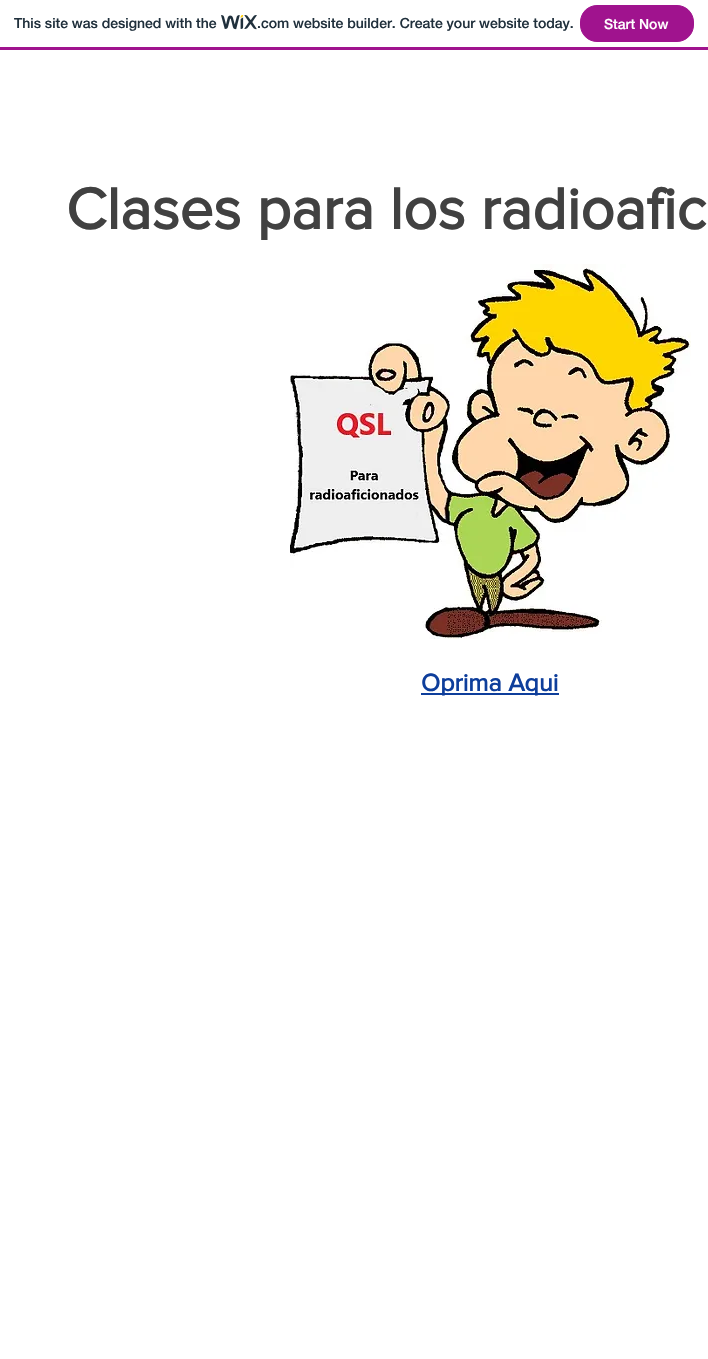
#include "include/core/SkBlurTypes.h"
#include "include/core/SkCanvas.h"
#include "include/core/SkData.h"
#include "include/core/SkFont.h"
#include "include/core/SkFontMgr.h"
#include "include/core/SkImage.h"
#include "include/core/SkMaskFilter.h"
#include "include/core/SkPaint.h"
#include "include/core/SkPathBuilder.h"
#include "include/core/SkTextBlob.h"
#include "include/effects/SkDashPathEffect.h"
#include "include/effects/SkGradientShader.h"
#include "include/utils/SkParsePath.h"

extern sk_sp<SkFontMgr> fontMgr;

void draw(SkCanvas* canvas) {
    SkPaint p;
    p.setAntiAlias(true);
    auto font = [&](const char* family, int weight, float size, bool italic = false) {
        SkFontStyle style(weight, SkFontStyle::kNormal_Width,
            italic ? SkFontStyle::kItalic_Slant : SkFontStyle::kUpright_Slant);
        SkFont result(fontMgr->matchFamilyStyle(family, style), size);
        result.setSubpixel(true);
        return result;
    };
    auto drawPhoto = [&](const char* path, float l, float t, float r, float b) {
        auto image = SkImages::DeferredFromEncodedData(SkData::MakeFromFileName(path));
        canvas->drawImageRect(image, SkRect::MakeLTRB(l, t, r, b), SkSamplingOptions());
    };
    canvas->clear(0xFFFFFFFF);
    p.setColor(0xFFA0138E);
    canvas->drawRect(SkRect::MakeLTRB(0, 47, 708, 50), p);
    auto font1 = font("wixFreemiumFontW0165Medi", 500, 14);
    p.setColor(0xFF20303C);
    canvas->drawString("This site was designed with the", 14, 28, font1, p);
    drawPhoto("media/1.png", 221, 15, 257, 30);
    canvas->drawString(".com website builder. Create your website today.", 257, 28, font1, p);
    p.setColor(0xFFA0138E);
    canvas->drawRoundRect(SkRect::MakeLTRB(580.5f, 5.5f, 693.5f, 41.5f), 16.5f, 16.5f, p);
    p.setStyle(SkPaint::kStroke_Style);
    p.setStrokeWidth(1);
    canvas->drawRoundRect(SkRect::MakeLTRB(580.5f, 5.5f, 693.5f, 41.5f), 16.5f, 16.5f, p);
    p.setStyle(SkPaint::kFill_Style);
    p.setColor(0xFFFFFFFF);
    canvas->drawString("Start Now", 604, 29, font1, p);
    auto font2 = font("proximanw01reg", 700, 60);
    p.setColor(0xFF414141);
    canvas->drawString("Clases para los radioafic", 66, 229, font2, p);
    drawPhoto("media/2.png", 290, 264, 691, 639);
    p.setColor(0xFF0E3E9B);
    canvas->drawRect(SkRect::MakeLTRB(421, 693, 559, 695), p);
    auto font3 = font("proximanw01reg", 700, 25);
    canvas->drawString("Oprima Aqui", 421, 691, font3, p);
}
